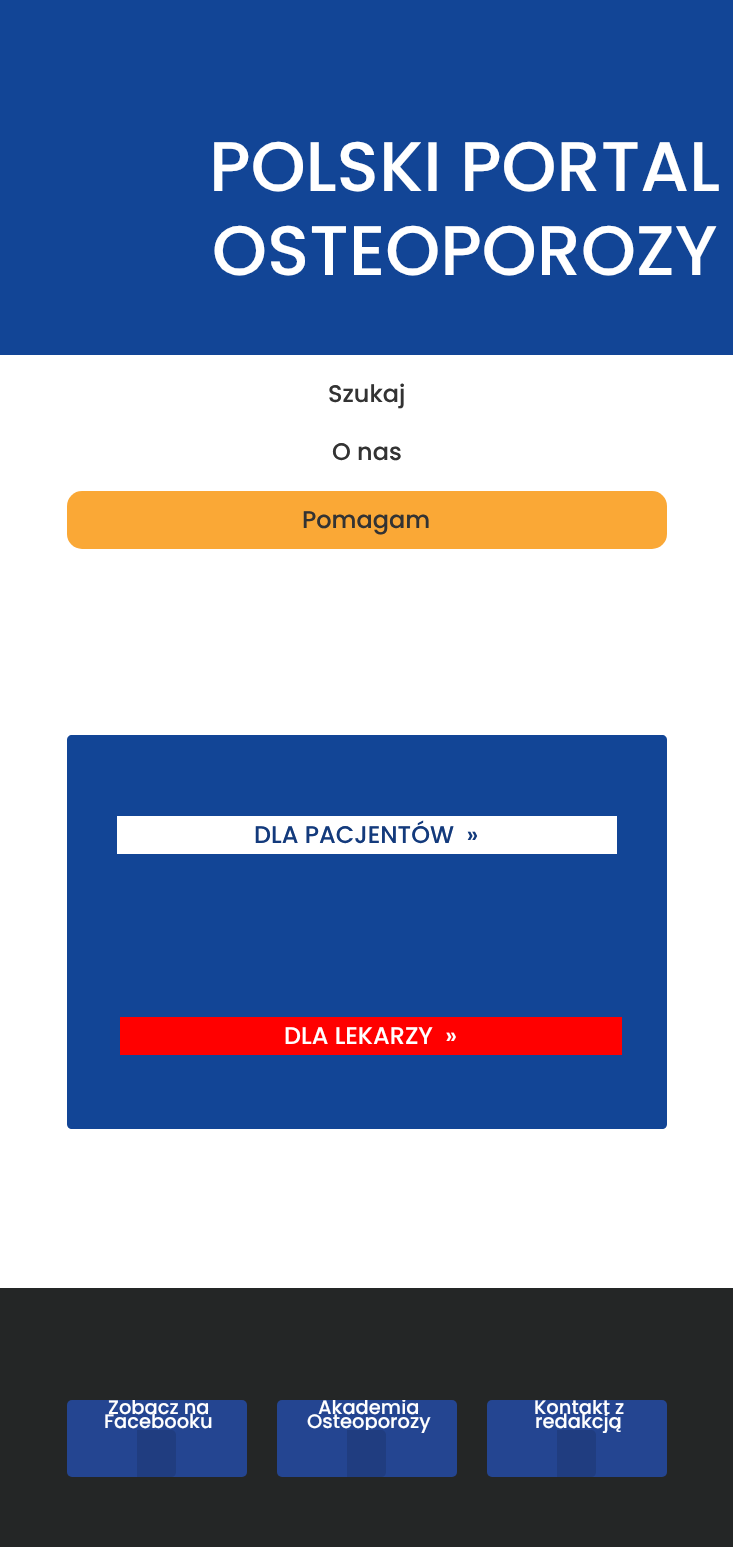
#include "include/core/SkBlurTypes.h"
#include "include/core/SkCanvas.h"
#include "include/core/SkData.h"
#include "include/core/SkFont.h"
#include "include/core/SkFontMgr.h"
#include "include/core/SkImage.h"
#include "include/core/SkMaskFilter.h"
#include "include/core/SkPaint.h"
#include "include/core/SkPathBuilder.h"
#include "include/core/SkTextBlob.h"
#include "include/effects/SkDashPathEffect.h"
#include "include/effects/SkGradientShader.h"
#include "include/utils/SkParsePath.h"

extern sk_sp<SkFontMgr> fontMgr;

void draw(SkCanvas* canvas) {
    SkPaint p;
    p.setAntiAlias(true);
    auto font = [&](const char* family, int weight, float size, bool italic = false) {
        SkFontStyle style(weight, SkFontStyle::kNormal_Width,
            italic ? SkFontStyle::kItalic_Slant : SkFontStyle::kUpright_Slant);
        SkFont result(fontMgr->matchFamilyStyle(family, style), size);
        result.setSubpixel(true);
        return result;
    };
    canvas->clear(0xFFFFFFFF);
    p.setColor(0xFF124596);
    canvas->drawRect(SkRect::MakeLTRB(0, 0, 733, 355), p);
    auto font1 = font("Poppins", 500, 70);
    p.setColor(0xFFFFFFFF);
    canvas->drawString("POLSKI PORTAL", 209, 191, font1, p);
    canvas->drawString("OSTEOPOROZY", 212, 275, font1, p);
    auto font2 = font("Poppins", 500, 24);
    p.setColor(0xFF333333);
    canvas->drawString("Szukaj", 328, 402, font2, p);
    canvas->drawString("O nas", 332, 460, font2, p);
    p.setColor(0xFFFAA836);
    canvas->drawRoundRect(SkRect::MakeLTRB(67, 491, 667, 549), 15, 15, p);
    p.setColor(0xFF333333);
    canvas->drawString("Pomagam", 302, 528, font2, p);
    p.setColor(0xFF124596);
    canvas->drawPath(SkPathBuilder().moveTo(72, 735).lineTo(662, 735).cubicTo(665, 735, 667, 737, 667, 740).lineTo(667, 936).lineTo(67, 936).lineTo(67, 740).cubicTo(67, 737, 69, 735, 72, 735).close().detach(), p);
    p.setColor(0xFFFFFFFF);
    canvas->drawRect(SkRect::MakeLTRB(117, 816, 617, 854), p);
    p.setColor(0xFF133A7C);
    canvas->drawString("DLA PACJENTÓW  »", 254, 843, font2, p);
    p.setColor(0xFF124596);
    canvas->drawPath(SkPathBuilder().moveTo(67, 936).lineTo(667, 936).lineTo(667, 1124).cubicTo(667, 1127, 665, 1129, 662, 1129).lineTo(72, 1129).cubicTo(69, 1129, 67, 1127, 67, 1124).close().detach(), p);
    p.setColor(0xFFFF0000);
    canvas->drawRect(SkRect::MakeLTRB(120, 1017, 622, 1055), p);
    p.setColor(0xFFFFFFFF);
    canvas->drawString("DLA LEKARZY  »", 284, 1044, font2, p);
    p.setColor(0xFF242626);
    canvas->drawRect(SkRect::MakeLTRB(0, 1288, 733, 1547), p);
    p.setColor(0xFF244591);
    canvas->drawRoundRect(SkRect::MakeLTRB(67, 1400, 247, 1477), 5, 5, p);
    canvas->save();
    canvas->clipPath(SkPathBuilder().moveTo(72, 1400).lineTo(242, 1400).cubicTo(245, 1400, 247, 1402, 247, 1405).lineTo(247, 1472).cubicTo(247, 1475, 245, 1477, 242, 1477).lineTo(72, 1477).cubicTo(69, 1477, 67, 1475, 67, 1472).lineTo(67, 1405).cubicTo(67, 1402, 69, 1400, 72, 1400).close().detach(), true);
    auto font3 = font("Poppins", 500, 19.5f);
    p.setColor(0xFFFFFFFF);
    canvas->drawString("Zobacz na", 108, 1414, font3, p);
    canvas->restore();
    canvas->drawString("Facebooku", 104, 1428, font3, p);
    p.setColor(0xFF203D80);
    canvas->drawPath(SkPathBuilder().moveTo(137, 1430).lineTo(171, 1430).cubicTo(174, 1430, 176, 1432, 176, 1435).lineTo(176, 1472).cubicTo(176, 1475, 174, 1477, 171, 1477).lineTo(137, 1477).close().detach(), p);
    p.setColor(0xFF244591);
    canvas->drawRoundRect(SkRect::MakeLTRB(277, 1400, 457, 1477), 5, 5, p);
    canvas->save();
    canvas->clipPath(SkPathBuilder().moveTo(282, 1400).lineTo(452, 1400).cubicTo(455, 1400, 457, 1402, 457, 1405).lineTo(457, 1472).cubicTo(457, 1475, 455, 1477, 452, 1477).lineTo(282, 1477).cubicTo(279, 1477, 277, 1475, 277, 1472).lineTo(277, 1405).cubicTo(277, 1402, 279, 1400, 282, 1400).close().detach(), true);
    p.setColor(0xFFFFFFFF);
    canvas->drawString("Akademia", 318, 1414, font3, p);
    canvas->restore();
    canvas->drawString("Osteoporozy", 307, 1428, font3, p);
    p.setColor(0xFF203D80);
    canvas->drawPath(SkPathBuilder().moveTo(347, 1430).lineTo(381, 1430).cubicTo(384, 1430, 386, 1432, 386, 1435).lineTo(386, 1472).cubicTo(386, 1475, 384, 1477, 381, 1477).lineTo(347, 1477).close().detach(), p);
    p.setColor(0xFF244591);
    canvas->drawRoundRect(SkRect::MakeLTRB(487, 1400, 667, 1477), 5, 5, p);
    canvas->save();
    canvas->clipPath(SkPathBuilder().moveTo(492, 1400).lineTo(662, 1400).cubicTo(665, 1400, 667, 1402, 667, 1405).lineTo(667, 1472).cubicTo(667, 1475, 665, 1477, 662, 1477).lineTo(492, 1477).cubicTo(489, 1477, 487, 1475, 487, 1472).lineTo(487, 1405).cubicTo(487, 1402, 489, 1400, 492, 1400).close().detach(), true);
    p.setColor(0xFFFFFFFF);
    canvas->drawString("Kontakt z", 534, 1414, font3, p);
    canvas->restore();
    canvas->drawString("redakcją", 535, 1428, font3, p);
    p.setColor(0xFF203D80);
    canvas->drawPath(SkPathBuilder().moveTo(557, 1430).lineTo(591, 1430).cubicTo(594, 1430, 596, 1432, 596, 1435).lineTo(596, 1472).cubicTo(596, 1475, 594, 1477, 591, 1477).lineTo(557, 1477).close().detach(), p);
}
